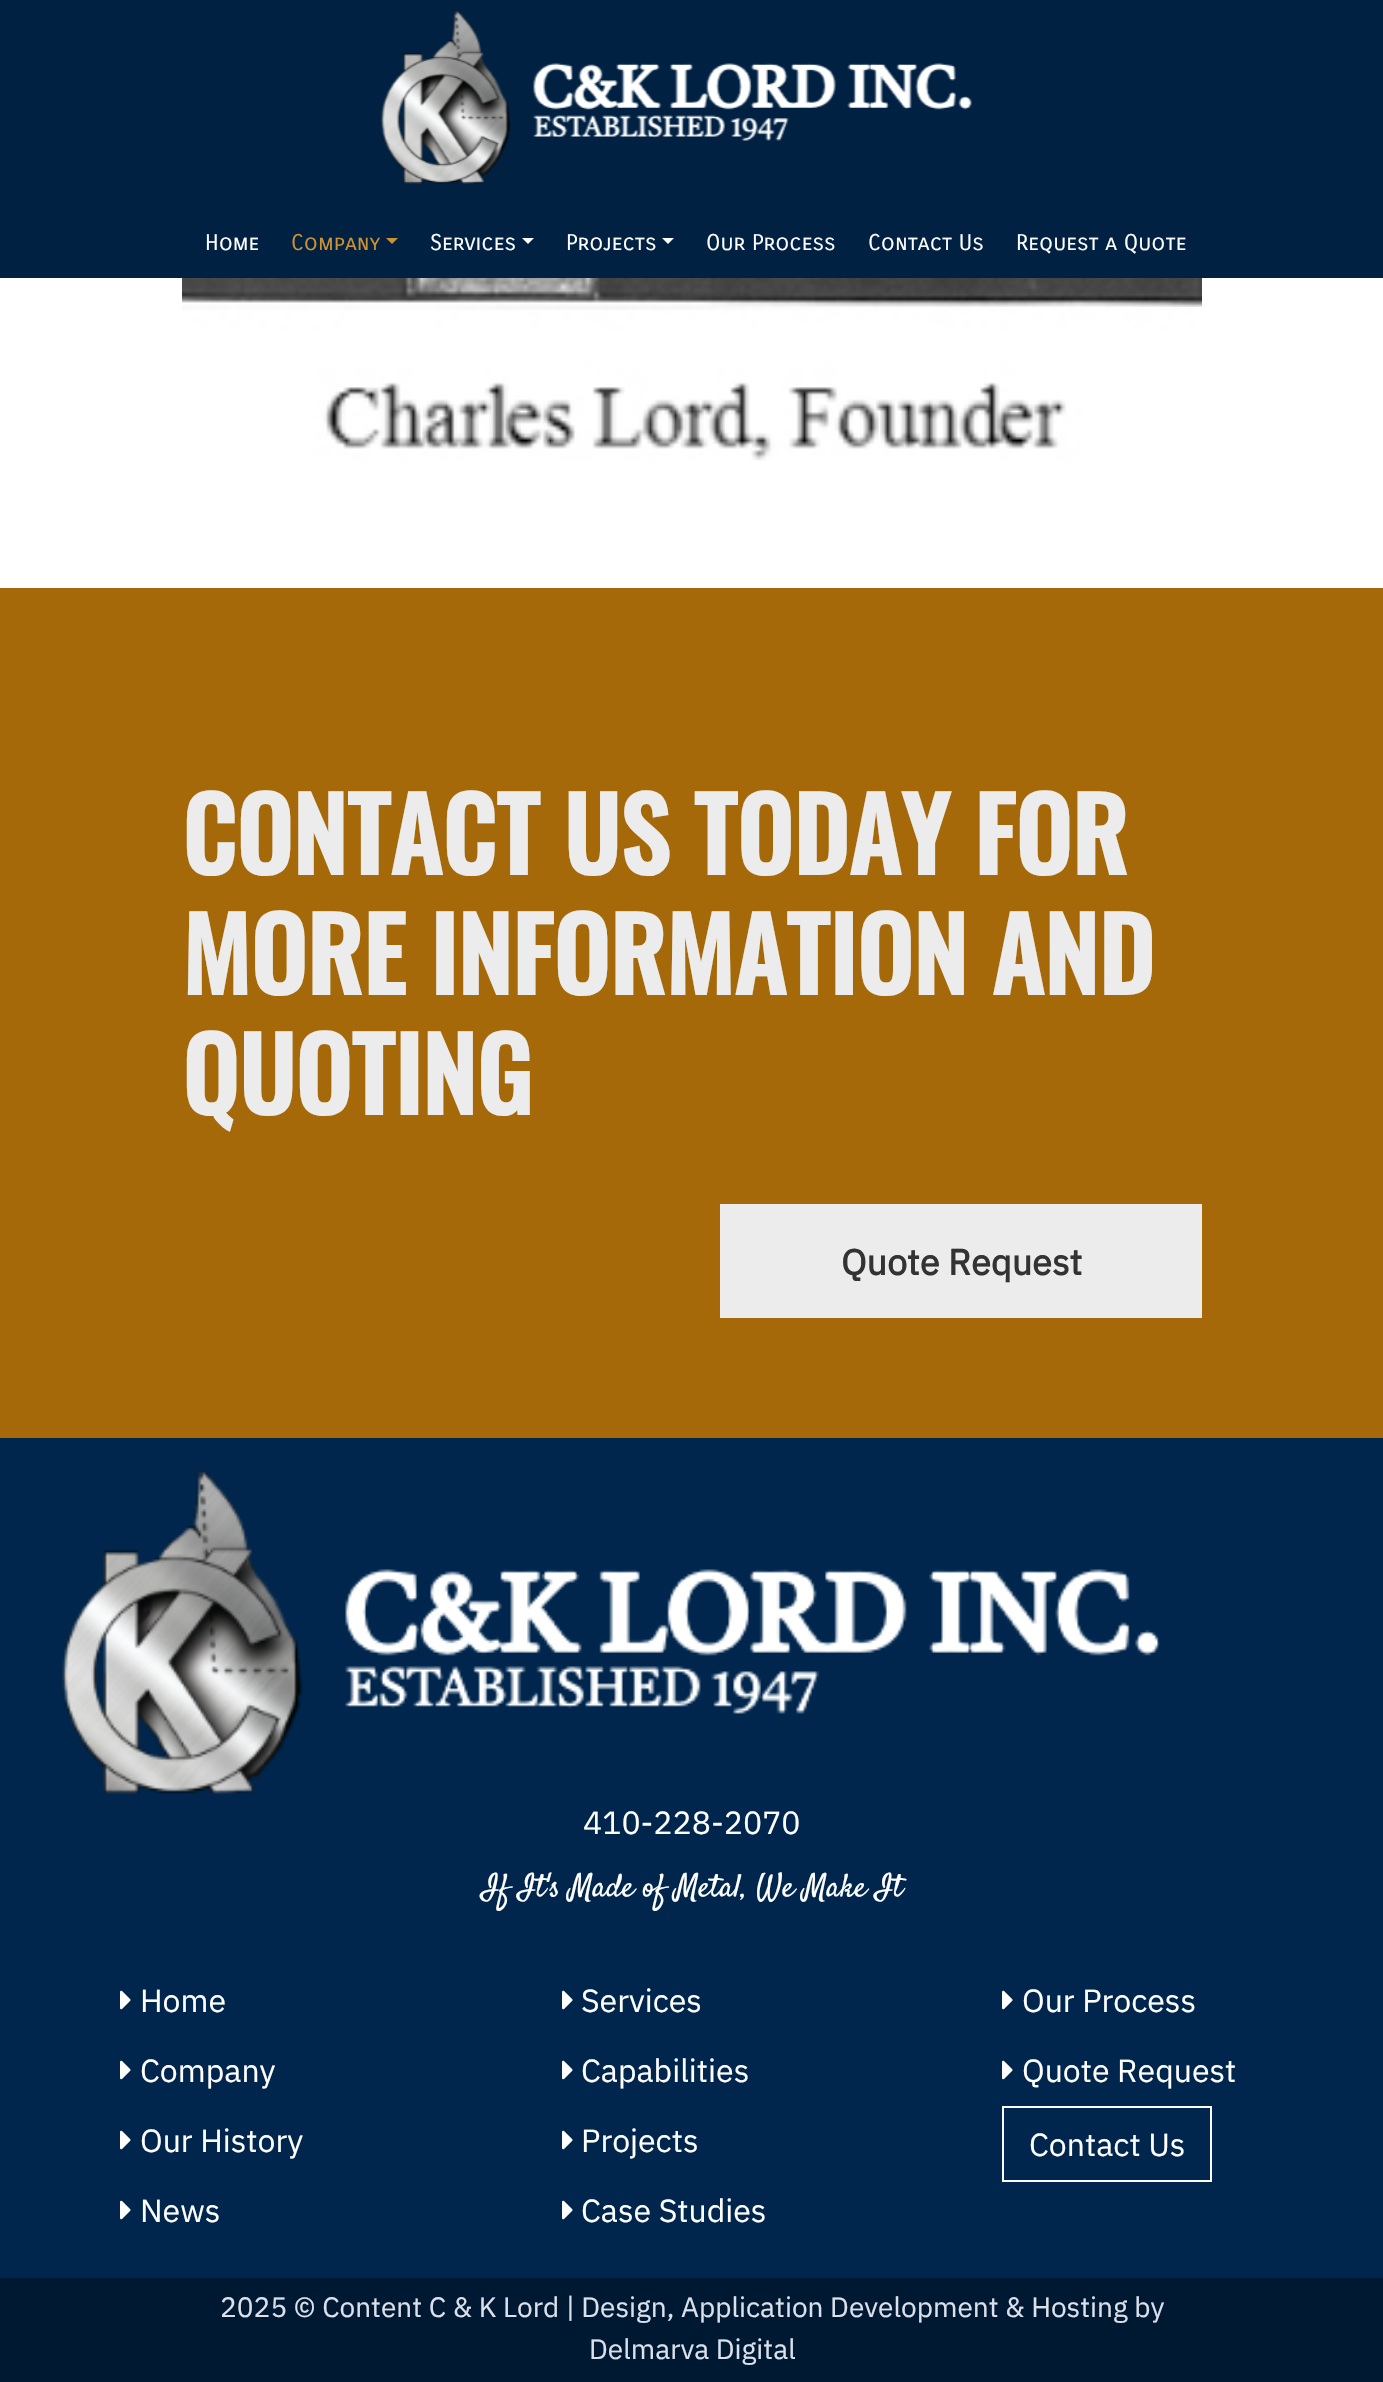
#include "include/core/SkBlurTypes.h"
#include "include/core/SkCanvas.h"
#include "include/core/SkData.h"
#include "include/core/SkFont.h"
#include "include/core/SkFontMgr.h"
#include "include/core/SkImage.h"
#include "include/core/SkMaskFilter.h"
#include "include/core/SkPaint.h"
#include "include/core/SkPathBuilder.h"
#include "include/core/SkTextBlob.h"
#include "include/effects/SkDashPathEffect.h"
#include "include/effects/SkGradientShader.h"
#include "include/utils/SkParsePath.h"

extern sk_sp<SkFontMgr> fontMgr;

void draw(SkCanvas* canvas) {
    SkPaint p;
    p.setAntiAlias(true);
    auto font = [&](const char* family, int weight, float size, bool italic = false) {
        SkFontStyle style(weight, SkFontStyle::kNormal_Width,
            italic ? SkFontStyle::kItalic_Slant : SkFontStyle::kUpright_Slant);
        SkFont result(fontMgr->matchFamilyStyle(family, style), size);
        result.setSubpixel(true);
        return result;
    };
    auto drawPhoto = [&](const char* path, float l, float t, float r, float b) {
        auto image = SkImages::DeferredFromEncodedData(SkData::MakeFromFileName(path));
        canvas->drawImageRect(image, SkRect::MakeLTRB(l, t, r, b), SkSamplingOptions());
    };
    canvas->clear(0xFFFFFFFF);
    p.setColor(0xFF002142);
    canvas->drawRect(SkRect::MakeLTRB(0, 0, 1383, 278), p);
    drawPhoto("media/1.png", 380, 10, 972, 184);
    auto font1 = font("Carrois Gothic SC", 400, 22);
    p.setColor(0xFFFFFFFF);
    canvas->drawString("Home", 205, 250, font1, p);
    p.setColor(0xFFCE9233);
    canvas->drawString("Company", 291, 250, font1, p);
    canvas->drawPath(SkPathBuilder().moveTo(386, 238).lineTo(398, 238).lineTo(392, 244).close().detach(), p);
    p.setColor(0xFFFFFFFF);
    canvas->drawString("Services", 430, 250, font1, p);
    canvas->drawPath(SkPathBuilder().moveTo(522, 238).lineTo(534, 238).lineTo(528, 244).close().detach(), p);
    canvas->drawString("Projects", 566, 250, font1, p);
    canvas->drawPath(SkPathBuilder().moveTo(662, 238).lineTo(674, 238).lineTo(668, 244).close().detach(), p);
    {
        const struct { const char* s; float x, y; } items[] = {
            {"Our Process", 706, 250},
            {"Contact Us", 868, 250},
            {"Request a Quote", 1016, 250},
        };
        for (auto [s, x, y] : items) {
            canvas->drawString(s, x, y, font1, p);
        }
    }
    drawPhoto("media/2.png", 182, 278, 1202, 461);
    p.setColor(0xFFA5690A);
    canvas->drawRect(SkRect::MakeLTRB(0, 588, 1383, 1438), p);
    auto font2 = font("Oswald", 700, 100);
    p.setColor(0xFFECECEC);
    {
        const struct { const char* s; float x, y; } items[] = {
            {"CONTACT US TODAY FOR", 182, 875},
            {"MORE INFORMATION AND", 182, 995},
            {"QUOTING", 182, 1115},
        };
        for (auto [s, x, y] : items) {
            canvas->drawString(s, x, y, font2, p);
        }
    }
    canvas->drawRect(SkRect::MakeLTRB(720, 1204, 1202, 1318), p);
    auto font3 = font("IBM Plex Sans", 700, 36);
    p.setColor(0xFF333333);
    canvas->drawString("Quote Request", 841, 1275, font3, p);
    p.setColor(0xFF00264D);
    canvas->drawRect(SkRect::MakeLTRB(0, 1438, 1383, 2278), p);
    drawPhoto("media/3.png", 62, 1470, 1160, 1794);
    auto font4 = font("IBM Plex Sans", 400, 32);
    p.setColor(0xFFFFFFFF);
    canvas->drawString("410-228-2070", 583, 1834, font4, p);
    auto font5 = font("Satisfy", 400, 32);
    canvas->drawString("If It's Made of Metal, We Make It", 482, 1896, font5, p);
    drawPhoto("media/4.png", 120, 1990, 131, 2010);
    canvas->drawString("Home", 140, 2012, font4, p);
    drawPhoto("media/4.png", 120, 2060, 131, 2080);
    canvas->drawString("Company", 140, 2082, font4, p);
    drawPhoto("media/4.png", 120, 2130, 131, 2150);
    canvas->drawString("Our History", 140, 2152, font4, p);
    drawPhoto("media/4.png", 120, 2200, 131, 2220);
    canvas->drawString("News", 140, 2222, font4, p);
    drawPhoto("media/4.png", 562, 1990, 573, 2010);
    canvas->drawString("Services", 581, 2012, font4, p);
    drawPhoto("media/4.png", 562, 2060, 573, 2080);
    canvas->drawString("Capabilities", 581, 2082, font4, p);
    drawPhoto("media/4.png", 562, 2130, 573, 2150);
    canvas->drawString("Projects", 581, 2152, font4, p);
    drawPhoto("media/4.png", 562, 2200, 573, 2220);
    canvas->drawString("Case Studies", 581, 2222, font4, p);
    drawPhoto("media/4.png", 1002, 1990, 1013, 2010);
    canvas->drawString("Our Process", 1022, 2012, font4, p);
    drawPhoto("media/4.png", 1002, 2060, 1013, 2080);
    canvas->drawString("Quote Request", 1022, 2082, font4, p);
    p.setStyle(SkPaint::kStroke_Style);
    p.setStrokeWidth(2);
    canvas->drawRect(SkRect::MakeLTRB(1003, 2107, 1211, 2181), p);
    p.setStyle(SkPaint::kFill_Style);
    canvas->drawString("Contact Us", 1029, 2156, font4, p);
    p.setColor(0xFF001933);
    canvas->drawRect(SkRect::MakeLTRB(0, 2278, 1383, 2382), p);
    auto font6 = font("IBM Plex Sans", 400, 28);
    p.setColor(0xFFDBE0EB);
    canvas->drawString("2025 © Content C & K Lord | Design, Application Development & Hosting by", 220, 2317, font6, p);
    canvas->drawString("Delmarva Digital", 589, 2359, font6, p);
}
